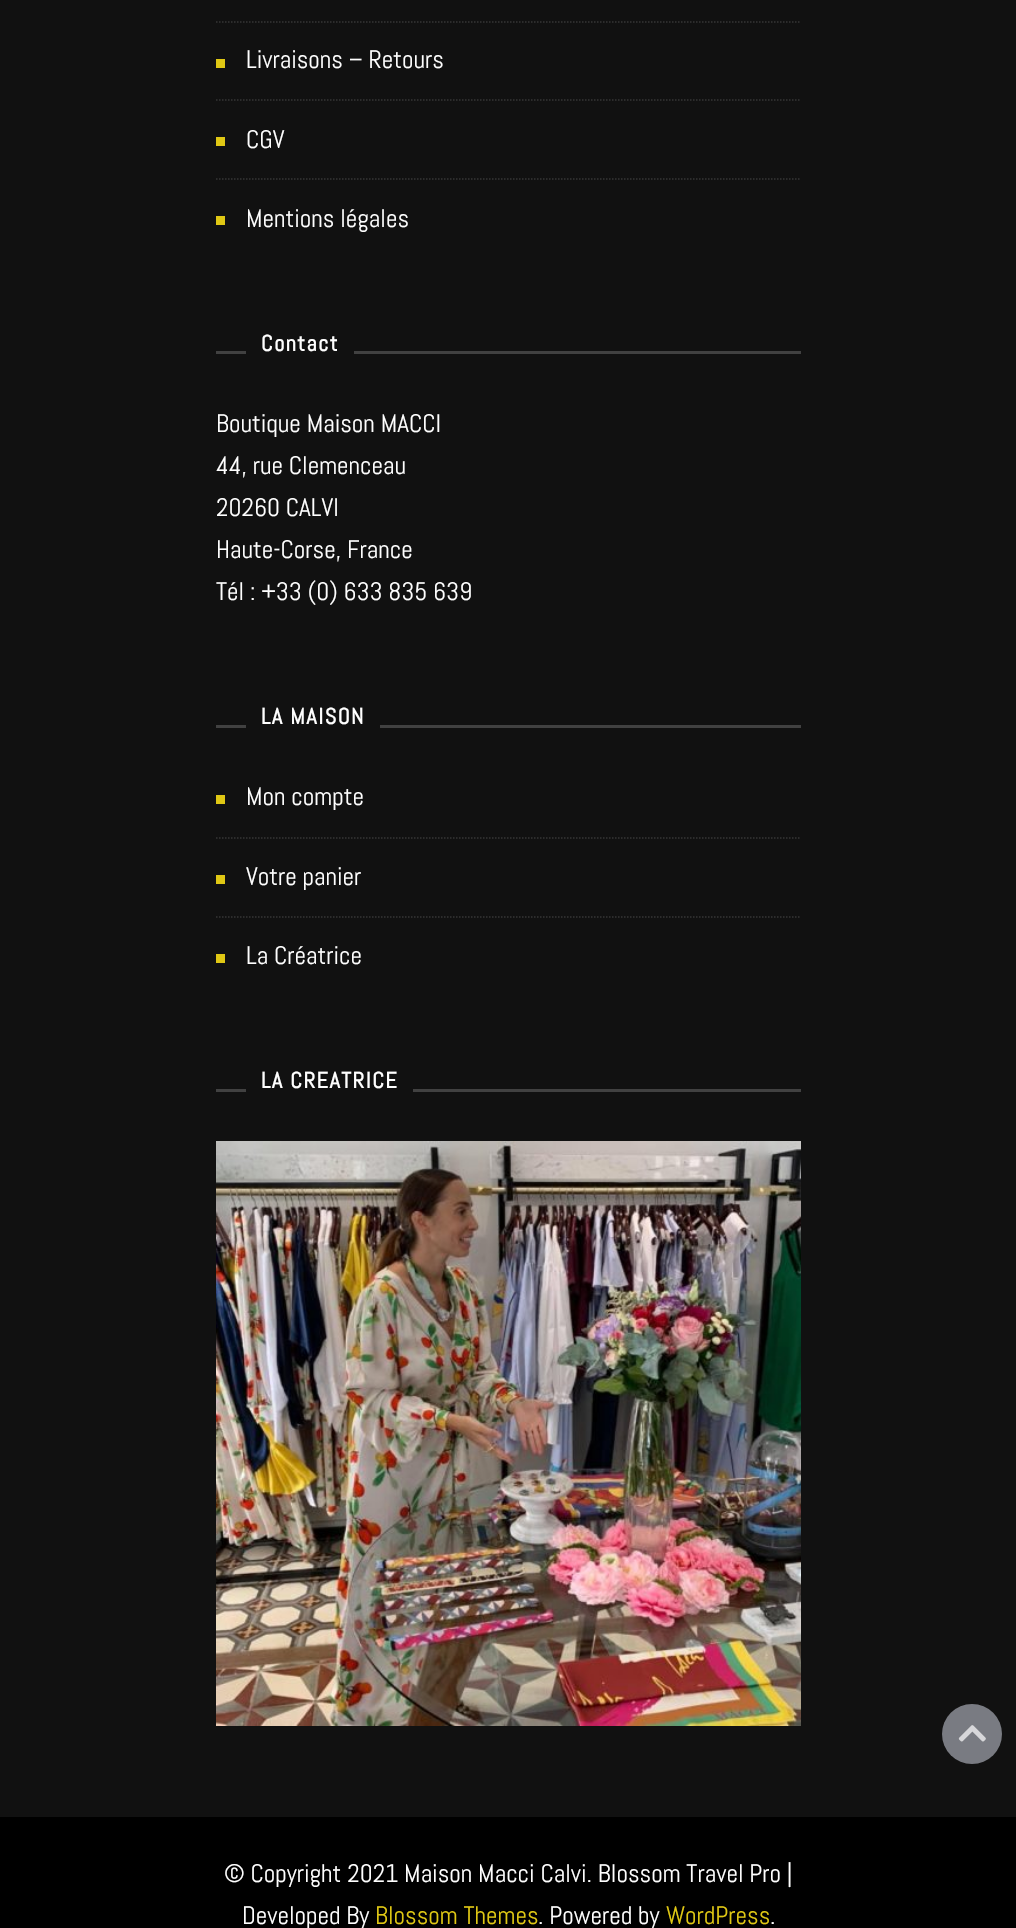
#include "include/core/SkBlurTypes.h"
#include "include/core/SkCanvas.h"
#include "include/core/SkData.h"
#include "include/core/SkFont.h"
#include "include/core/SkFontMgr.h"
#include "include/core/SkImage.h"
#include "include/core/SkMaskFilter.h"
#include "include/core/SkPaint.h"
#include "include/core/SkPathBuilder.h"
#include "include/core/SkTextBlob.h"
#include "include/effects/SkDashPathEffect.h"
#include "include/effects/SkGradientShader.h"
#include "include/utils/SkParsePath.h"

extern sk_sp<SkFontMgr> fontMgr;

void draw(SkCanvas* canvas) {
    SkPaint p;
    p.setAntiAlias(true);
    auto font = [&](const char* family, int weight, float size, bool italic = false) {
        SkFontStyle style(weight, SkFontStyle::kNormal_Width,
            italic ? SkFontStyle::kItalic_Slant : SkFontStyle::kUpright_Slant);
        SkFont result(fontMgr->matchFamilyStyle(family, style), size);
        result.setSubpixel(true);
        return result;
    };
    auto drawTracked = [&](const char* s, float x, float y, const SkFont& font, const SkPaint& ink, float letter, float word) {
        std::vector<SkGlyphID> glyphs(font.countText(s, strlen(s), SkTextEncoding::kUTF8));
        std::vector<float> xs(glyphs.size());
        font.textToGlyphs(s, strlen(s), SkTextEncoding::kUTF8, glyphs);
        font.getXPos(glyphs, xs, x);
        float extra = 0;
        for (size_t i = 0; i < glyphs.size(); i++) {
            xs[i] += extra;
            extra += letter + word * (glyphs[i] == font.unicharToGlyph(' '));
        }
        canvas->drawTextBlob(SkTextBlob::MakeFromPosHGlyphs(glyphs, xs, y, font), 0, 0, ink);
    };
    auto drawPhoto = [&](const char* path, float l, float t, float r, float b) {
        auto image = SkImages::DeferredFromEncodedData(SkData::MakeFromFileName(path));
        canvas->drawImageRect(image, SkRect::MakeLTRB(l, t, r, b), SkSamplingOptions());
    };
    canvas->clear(0xFF111111);
    p.setStyle(SkPaint::kStroke_Style);
    p.setStrokeWidth(1.5f);
    p.setColor(0xFF353535);
    p.setPathEffect(SkDashPathEffect::Make({{1.5f, 1.5f}}, 0));
    canvas->drawPath(SkPathBuilder().moveTo(216, 22).lineTo(801, 22).detach(), p);
    p.setPathEffect(nullptr);
    p.setPathEffect(SkDashPathEffect::Make({{1.5f, 1.5f}}, 0));
    canvas->drawPath(SkPathBuilder().moveTo(216, 100).lineTo(801, 100).detach(), p);
    p.setPathEffect(nullptr);
    p.setStyle(SkPaint::kFill_Style);
    p.setColor(0xFFE0C814);
    canvas->drawRect(SkRect::MakeLTRB(216, 59, 225, 68), p);
    auto font1 = font("Abel", 400, 25.3f);
    p.setColor(0xFFFFFFFF);
    canvas->drawString("Livraisons – Retours", 246, 68, font1, p);
    p.setStyle(SkPaint::kStroke_Style);
    p.setColor(0xFF353535);
    p.setPathEffect(SkDashPathEffect::Make({{1.5f, 1.5f}}, 0));
    canvas->drawPath(SkPathBuilder().moveTo(216, 179).lineTo(801, 179).detach(), p);
    p.setPathEffect(nullptr);
    p.setStyle(SkPaint::kFill_Style);
    p.setColor(0xFFE0C814);
    canvas->drawRect(SkRect::MakeLTRB(216, 137, 225, 146), p);
    p.setColor(0xFFFFFFFF);
    canvas->drawString("CGV", 246, 148, font1, p);
    p.setColor(0xFFE0C814);
    canvas->drawRect(SkRect::MakeLTRB(216, 216, 225, 225), p);
    p.setColor(0xFFFFFFFF);
    canvas->drawString("Mentions légales", 246, 227, font1, p);
    p.setColor(0xFF414141);
    canvas->drawRect(SkRect::MakeLTRB(216, 351, 801, 354), p);
    p.setColor(0xFF111111);
    canvas->drawRect(SkRect::MakeLTRB(246, 351, 354, 354), p);
    auto font2 = font("Abel", 700, 22.25f);
    p.setColor(0xFFFFFFFF);
    drawTracked("Contact", 261, 351, font2, p, 1.5f, 0);
    {
        const struct { const char* s; float x, y; } items[] = {
            {"Boutique Maison MACCI", 216, 432},
            {"44, rue Clemenceau", 216, 474},
            {"20260 CALVI", 216, 516},
            {"Haute-Corse, France", 216, 558},
            {"Tél : +33 (0) 633 835 639", 216, 600},
        };
        for (auto [s, x, y] : items) {
            canvas->drawString(s, x, y, font1, p);
        }
    }
    drawTracked("LA MAISON", 261, 724, font2, p, 1.5f, 0);
    p.setColor(0xFF414141);
    canvas->drawRect(SkRect::MakeLTRB(216, 725, 801, 728), p);
    p.setColor(0xFF111111);
    canvas->drawRect(SkRect::MakeLTRB(246, 725, 380, 728), p);
    p.setStyle(SkPaint::kStroke_Style);
    p.setColor(0xFF353535);
    p.setPathEffect(SkDashPathEffect::Make({{1.5f, 1.5f}}, 0));
    canvas->drawPath(SkPathBuilder().moveTo(216, 838).lineTo(801, 838).detach(), p);
    p.setPathEffect(nullptr);
    p.setStyle(SkPaint::kFill_Style);
    p.setColor(0xFFE0C814);
    canvas->drawRect(SkRect::MakeLTRB(216, 795, 225, 804), p);
    p.setColor(0xFFFFFFFF);
    canvas->drawString("Mon compte", 246, 805, font1, p);
    p.setStyle(SkPaint::kStroke_Style);
    p.setColor(0xFF353535);
    p.setPathEffect(SkDashPathEffect::Make({{1.5f, 1.5f}}, 0));
    canvas->drawPath(SkPathBuilder().moveTo(216, 917).lineTo(801, 917).detach(), p);
    p.setPathEffect(nullptr);
    p.setStyle(SkPaint::kFill_Style);
    p.setColor(0xFFE0C814);
    canvas->drawRect(SkRect::MakeLTRB(216, 875, 225, 884), p);
    p.setColor(0xFFFFFFFF);
    canvas->drawString("Votre panier", 246, 885, font1, p);
    p.setColor(0xFFE0C814);
    canvas->drawRect(SkRect::MakeLTRB(216, 954, 225, 963), p);
    p.setColor(0xFFFFFFFF);
    canvas->drawString("La Créatrice", 246, 964, font1, p);
    drawTracked("LA CREATRICE", 261, 1088, font2, p, 1.5f, 0);
    p.setColor(0xFF414141);
    canvas->drawRect(SkRect::MakeLTRB(216, 1089, 801, 1092), p);
    p.setColor(0xFF111111);
    canvas->drawRect(SkRect::MakeLTRB(246, 1089, 413, 1092), p);
    drawPhoto("media/1.png", 216, 1141, 801, 1726);
    p.setColor(0xFF797B82);
    canvas->drawCircle(972, 1734, 30, p);
    drawPhoto("media/2.png", 958, 1725, 986, 1742);
    p.setColor(0xFF000000);
    canvas->drawRect(SkRect::MakeLTRB(0, 1817, 1016, 1928), p);
    p.setColor(0xFFFFFFFF);
    canvas->drawString("© Copyright 2021 Maison Macci Calvi. Blossom Travel Pro |", 224, 1882, font1, p);
    canvas->drawString("Developed By", 242, 1924, font1, p);
    p.setColor(0xFFE0C814);
    canvas->drawString("Blossom Themes", 375, 1924, font1, p);
    p.setColor(0xFFFFFFFF);
    canvas->drawString(". Powered by", 538, 1924, font1, p);
    p.setColor(0xFFE0C814);
    canvas->drawString("WordPress", 666, 1924, font1, p);
    p.setColor(0xFFFFFFFF);
    canvas->drawString(".", 770, 1924, font1, p);
}
